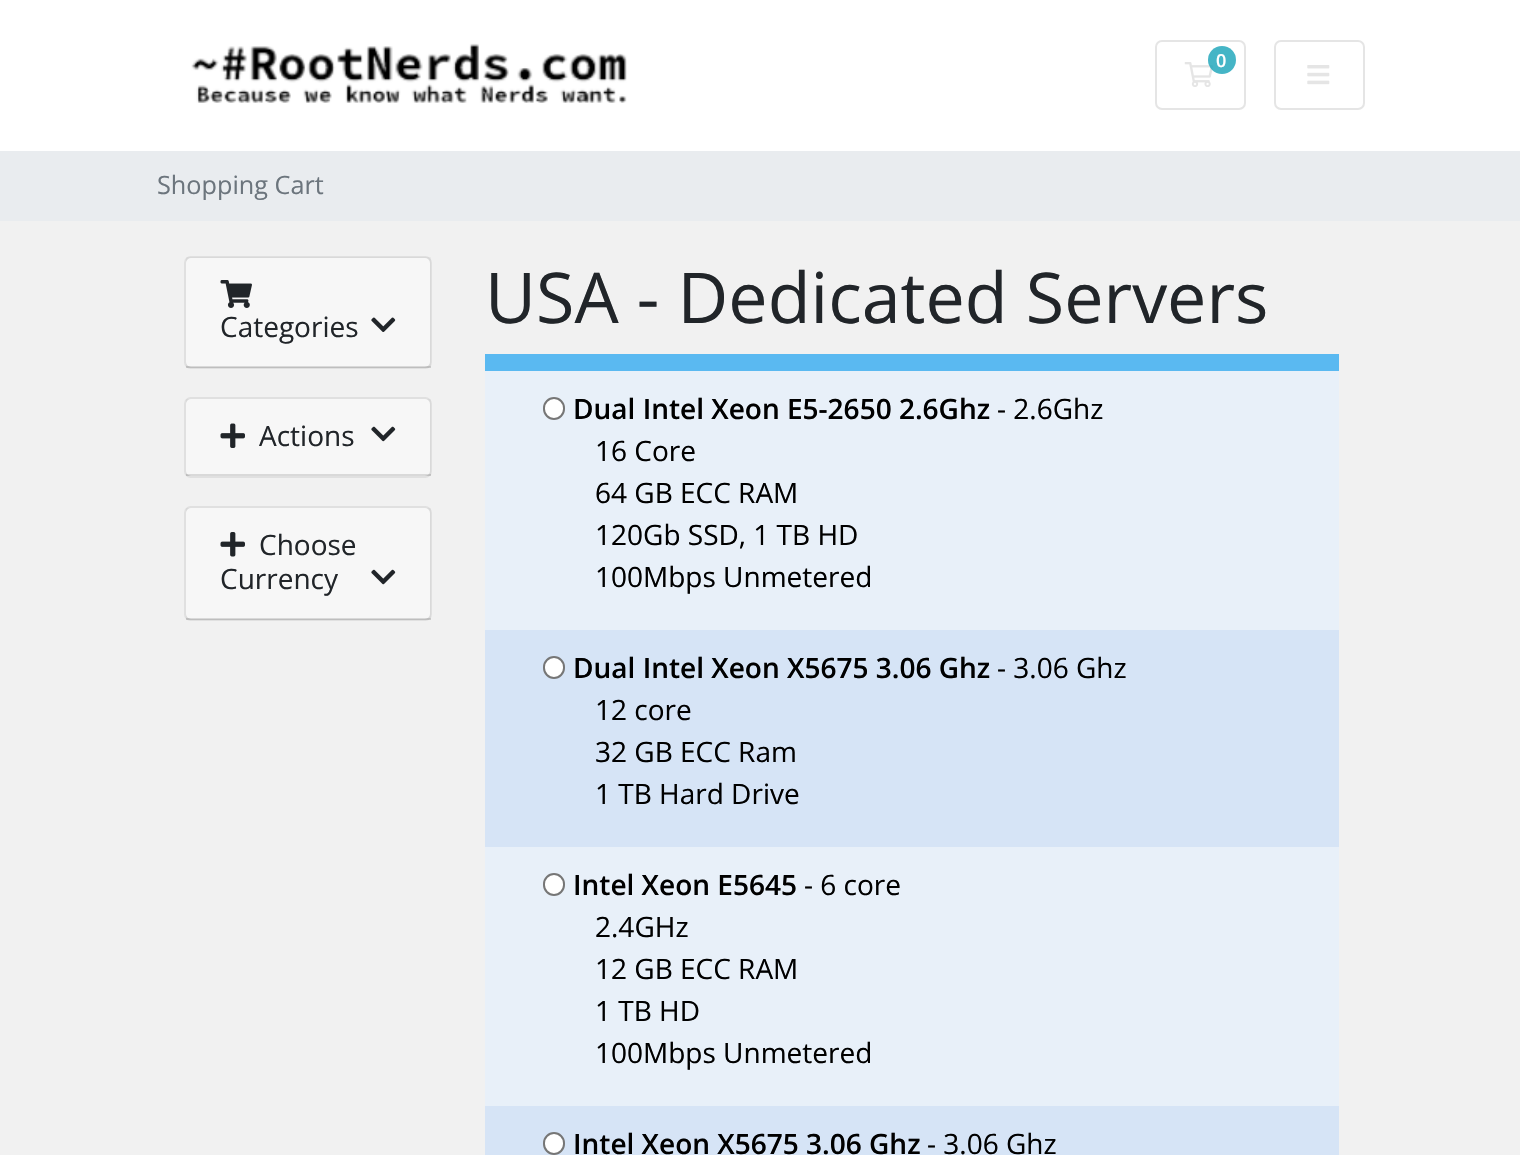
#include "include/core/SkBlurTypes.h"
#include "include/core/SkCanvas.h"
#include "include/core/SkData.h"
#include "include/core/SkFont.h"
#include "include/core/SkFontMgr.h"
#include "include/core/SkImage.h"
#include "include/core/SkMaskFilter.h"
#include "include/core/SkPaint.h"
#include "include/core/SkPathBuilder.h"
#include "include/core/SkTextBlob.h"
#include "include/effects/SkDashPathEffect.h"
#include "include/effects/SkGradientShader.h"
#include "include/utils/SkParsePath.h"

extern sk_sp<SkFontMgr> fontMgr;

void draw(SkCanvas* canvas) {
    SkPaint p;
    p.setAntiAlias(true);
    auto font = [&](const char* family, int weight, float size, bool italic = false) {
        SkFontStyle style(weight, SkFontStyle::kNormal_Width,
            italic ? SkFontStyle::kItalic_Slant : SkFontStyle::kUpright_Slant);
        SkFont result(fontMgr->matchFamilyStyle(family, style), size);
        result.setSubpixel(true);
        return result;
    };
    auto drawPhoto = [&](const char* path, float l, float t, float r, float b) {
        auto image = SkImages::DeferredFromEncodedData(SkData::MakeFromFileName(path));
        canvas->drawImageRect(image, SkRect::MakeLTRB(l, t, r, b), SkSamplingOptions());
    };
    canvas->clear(0xFFF1F1F1);
    p.setColor(0xFFFFFFFF);
    canvas->drawRect(SkRect::MakeLTRB(0, 0, 1520, 151), p);
    drawPhoto("media/1.png", 191, 43, 627, 103);
    p.setStyle(SkPaint::kStroke_Style);
    p.setStrokeWidth(2);
    p.setColor(0xFFE5E5E5);
    canvas->drawRoundRect(SkRect::MakeLTRB(1156, 41, 1245, 109), 6, 6, p);
    drawPhoto("media/2.png", 1184, 62, 1213, 87);
    p.setStyle(SkPaint::kFill_Style);
    p.setColor(0xCC17A2B8);
    canvas->drawCircle(1222, 60, 14, p);
    auto font1 = font("Open Sans", 600, 18);
    p.setColor(0xFFFFFFFF);
    canvas->drawString("0", 1216, 67, font1, p);
    p.setStyle(SkPaint::kStroke_Style);
    p.setColor(0xFFE5E5E5);
    canvas->drawRoundRect(SkRect::MakeLTRB(1275, 41, 1364, 109), 6, 6, p);
    drawPhoto("media/3.png", 1307, 65, 1330, 85);
    p.setStyle(SkPaint::kFill_Style);
    p.setColor(0xFFE9ECEF);
    canvas->drawRect(SkRect::MakeLTRB(0, 151, 1520, 221), p);
    auto font2 = font("Open Sans", 400, 25.25f);
    p.setColor(0xFF6C757D);
    canvas->drawString("Shopping Cart", 157, 194, font2, p);
    auto font3 = font("Open Sans", 400, 70);
    p.setColor(0xFF212529);
    canvas->drawString("USA - Dedicated Servers", 485, 323, font3, p);
    p.setColor(0xFFFFFFFF);
    canvas->drawRoundRect(SkRect::MakeLTRB(184, 256, 432, 369), 7, 7, p);
    p.setStyle(SkPaint::kStroke_Style);
    p.setColor(0x1F000000);
    canvas->drawRoundRect(SkRect::MakeLTRB(185, 257, 431, 368), 6, 6, p);
    p.setStyle(SkPaint::kFill_Style);
    p.setColor(0x08000000);
    canvas->drawRect(SkRect::MakeLTRB(186, 257, 431, 368), p);
    p.setColor(0x1F000000);
    canvas->drawRect(SkRect::MakeLTRB(186, 366, 431, 368), p);
    drawPhoto("media/4.png", 220, 280, 252, 308);
    auto font4 = font("Open Sans", 400, 28);
    p.setColor(0xFF212529);
    canvas->drawString("Categories", 220, 337, font4, p);
    drawPhoto("media/5.png", 371, 317, 396, 332);
    p.setColor(0xFFFFFFFF);
    canvas->drawRoundRect(SkRect::MakeLTRB(184, 397, 432, 478), 7, 7, p);
    p.setStyle(SkPaint::kStroke_Style);
    p.setColor(0x1F000000);
    canvas->drawRoundRect(SkRect::MakeLTRB(185, 398, 431, 477), 6, 6, p);
    p.setStyle(SkPaint::kFill_Style);
    p.setColor(0x08000000);
    canvas->drawRect(SkRect::MakeLTRB(186, 399, 431, 476), p);
    p.setColor(0x1F000000);
    canvas->drawRect(SkRect::MakeLTRB(186, 474, 431, 476), p);
    drawPhoto("media/6.png", 220, 423, 245, 448);
    p.setColor(0xFF212529);
    canvas->drawString("Actions", 259, 446, font4, p);
    drawPhoto("media/7.png", 371, 426, 396, 442);
    p.setColor(0xFFFFFFFF);
    canvas->drawRoundRect(SkRect::MakeLTRB(184, 506, 432, 621), 7, 7, p);
    p.setStyle(SkPaint::kStroke_Style);
    p.setColor(0x1F000000);
    canvas->drawRoundRect(SkRect::MakeLTRB(185, 507, 431, 620), 6, 6, p);
    p.setStyle(SkPaint::kFill_Style);
    p.setColor(0x08000000);
    canvas->drawRect(SkRect::MakeLTRB(186, 508, 431, 620), p);
    p.setColor(0x1F000000);
    canvas->drawRect(SkRect::MakeLTRB(186, 618, 431, 620), p);
    drawPhoto("media/8.png", 220, 532, 245, 557);
    p.setColor(0xFF212529);
    canvas->drawString("Choose", 259, 555, font4, p);
    canvas->drawString("Currency", 220, 589, font4, p);
    drawPhoto("media/9.png", 371, 569, 396, 585);
    p.setColor(0xFF5AB9F1);
    canvas->drawRect(SkRect::MakeLTRB(485, 354, 1339, 371), p);
    p.setColor(0xFFE8F0F9);
    canvas->drawRect(SkRect::MakeLTRB(485, 371, 1339, 630), p);
    p.setColor(0xFFFFFFFF);
    canvas->drawRoundRect(SkRect::MakeLTRB(544, 398, 564, 419), 10, 10, p);
    p.setStyle(SkPaint::kStroke_Style);
    p.setColor(0xFF767676);
    canvas->drawRoundRect(SkRect::MakeLTRB(544, 398, 564, 419), 10, 10, p);
    auto font5 = font("Open Sans", 600, 28);
    p.setStyle(SkPaint::kFill_Style);
    p.setColor(0xFF000000);
    canvas->drawString("Dual Intel Xeon E5-2650 2.6Ghz", 573, 419, font5, p);
    {
        const struct { const char* s; float x, y; } items[] = {
            {"- 2.6Ghz", 997, 419},
            {"16 Core", 595, 461},
            {"64 GB ECC RAM", 595, 503},
            {"120Gb SSD, 1 TB HD", 595, 545},
            {"100Mbps Unmetered", 595, 587},
        };
        for (auto [s, x, y] : items) {
            canvas->drawString(s, x, y, font4, p);
        }
    }
    p.setColor(0xFFD6E4F6);
    canvas->drawRect(SkRect::MakeLTRB(485, 630, 1339, 847), p);
    p.setColor(0xFFFFFFFF);
    canvas->drawRoundRect(SkRect::MakeLTRB(544, 657, 564, 678), 10, 10, p);
    p.setStyle(SkPaint::kStroke_Style);
    p.setColor(0xFF767676);
    canvas->drawRoundRect(SkRect::MakeLTRB(544, 657, 564, 678), 10, 10, p);
    p.setStyle(SkPaint::kFill_Style);
    p.setColor(0xFF000000);
    canvas->drawString("Dual Intel Xeon X5675 3.06 Ghz", 573, 678, font5, p);
    {
        const struct { const char* s; float x, y; } items[] = {
            {"- 3.06 Ghz", 997, 678},
            {"12 core", 595, 720},
            {"32 GB ECC Ram", 595, 762},
            {"1 TB Hard Drive", 595, 804},
        };
        for (auto [s, x, y] : items) {
            canvas->drawString(s, x, y, font4, p);
        }
    }
    p.setColor(0xFFE8F0F9);
    canvas->drawRect(SkRect::MakeLTRB(485, 847, 1339, 1106), p);
    p.setColor(0xFFFFFFFF);
    canvas->drawRoundRect(SkRect::MakeLTRB(544, 874, 564, 895), 10, 10, p);
    p.setStyle(SkPaint::kStroke_Style);
    p.setColor(0xFF767676);
    canvas->drawRoundRect(SkRect::MakeLTRB(544, 874, 564, 895), 10, 10, p);
    p.setStyle(SkPaint::kFill_Style);
    p.setColor(0xFF000000);
    canvas->drawString("Intel Xeon E5645", 573, 895, font5, p);
    {
        const struct { const char* s; float x, y; } items[] = {
            {"- 6 core", 804, 895},
            {"2.4GHz", 595, 937},
            {"12 GB ECC RAM", 595, 979},
            {"1 TB HD", 595, 1021},
            {"100Mbps Unmetered", 595, 1063},
        };
        for (auto [s, x, y] : items) {
            canvas->drawString(s, x, y, font4, p);
        }
    }
    p.setColor(0xFFD6E4F6);
    canvas->drawRect(SkRect::MakeLTRB(485, 1106, 1339, 1155), p);
    p.setColor(0xFFFFFFFF);
    canvas->drawRoundRect(SkRect::MakeLTRB(544, 1133, 564, 1154), 10, 10, p);
    p.setStyle(SkPaint::kStroke_Style);
    p.setColor(0xFF767676);
    canvas->drawRoundRect(SkRect::MakeLTRB(544, 1133, 564, 1154), 10, 10, p);
    p.setStyle(SkPaint::kFill_Style);
    p.setColor(0xFF000000);
    canvas->drawString("Intel Xeon X5675 3.06 Ghz", 573, 1154, font5, p);
    canvas->drawString("- 3.06 Ghz", 927, 1154, font4, p);
}
